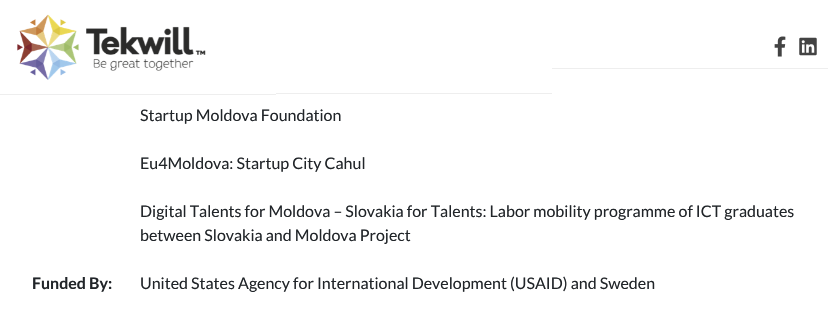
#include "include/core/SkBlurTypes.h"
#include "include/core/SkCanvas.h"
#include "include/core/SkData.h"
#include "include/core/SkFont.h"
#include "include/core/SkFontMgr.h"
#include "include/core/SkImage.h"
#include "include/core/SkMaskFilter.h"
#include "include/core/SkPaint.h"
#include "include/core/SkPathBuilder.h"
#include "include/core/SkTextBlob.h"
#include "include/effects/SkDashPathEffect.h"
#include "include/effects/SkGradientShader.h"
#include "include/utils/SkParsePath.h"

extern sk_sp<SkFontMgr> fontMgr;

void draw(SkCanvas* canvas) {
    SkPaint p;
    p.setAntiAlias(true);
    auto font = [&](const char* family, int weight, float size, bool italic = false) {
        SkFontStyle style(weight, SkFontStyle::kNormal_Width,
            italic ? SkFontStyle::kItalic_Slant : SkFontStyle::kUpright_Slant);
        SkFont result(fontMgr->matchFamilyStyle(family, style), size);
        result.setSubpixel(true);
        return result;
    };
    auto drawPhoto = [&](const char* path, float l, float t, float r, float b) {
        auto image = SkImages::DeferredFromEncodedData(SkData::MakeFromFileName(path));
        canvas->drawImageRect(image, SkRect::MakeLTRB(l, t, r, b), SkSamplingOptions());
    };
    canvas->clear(0xFFFFFFFF);
    p.setColor(0xFFEEEEEE);
    canvas->drawRect(SkRect::MakeLTRB(0, 94, 276, 95), p);
    drawPhoto("media/1.png", 17, 14, 206, 80);
    canvas->drawRect(SkRect::MakeLTRB(552, 68, 828, 69), p);
    drawPhoto("media/2.png", 774, 36, 786, 57);
    drawPhoto("media/3.png", 799, 37, 817, 56);
    canvas->drawRect(SkRect::MakeLTRB(276, 93, 552, 94), p);
    auto font1 = font("Lato", 400, 16);
    p.setColor(0xFF212529);
    {
        const struct { const char* s; float x, y; } items[] = {
            {"Startup Moldova Foundation", 140, 121},
            {"Eu4Moldova: Startup City Cahul", 140, 169},
            {"Digital Talents for Moldova – Slovakia for Talents: Labor mobility programme of ICT graduates", 140, 217},
            {"between Slovakia and Moldova Project", 140, 241},
        };
        for (auto [s, x, y] : items) {
            canvas->drawString(s, x, y, font1, p);
        }
    }
    auto font2 = font("Lato", 700, 16);
    canvas->drawString("Funded By:", 32, 289, font2, p);
    canvas->drawString("United States Agency for International Development (USAID) and Sweden", 140, 289, font1, p);
}
